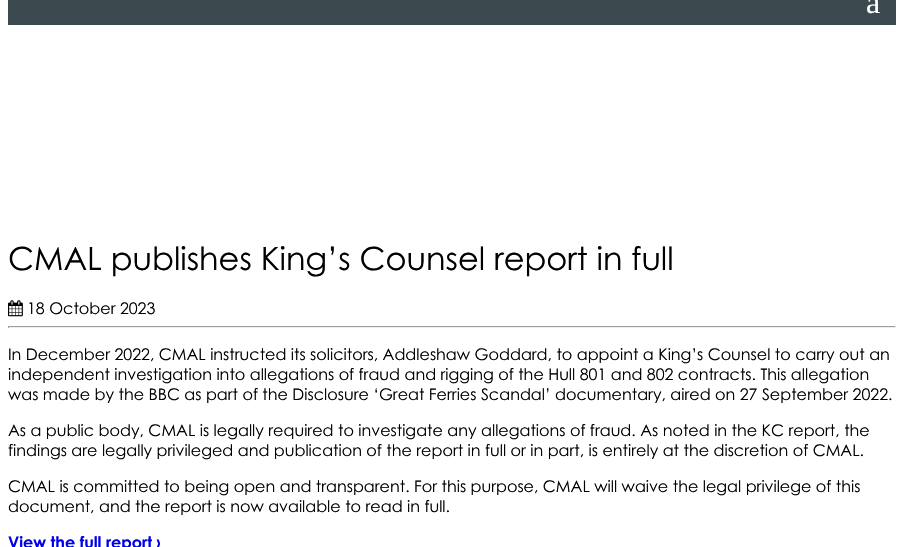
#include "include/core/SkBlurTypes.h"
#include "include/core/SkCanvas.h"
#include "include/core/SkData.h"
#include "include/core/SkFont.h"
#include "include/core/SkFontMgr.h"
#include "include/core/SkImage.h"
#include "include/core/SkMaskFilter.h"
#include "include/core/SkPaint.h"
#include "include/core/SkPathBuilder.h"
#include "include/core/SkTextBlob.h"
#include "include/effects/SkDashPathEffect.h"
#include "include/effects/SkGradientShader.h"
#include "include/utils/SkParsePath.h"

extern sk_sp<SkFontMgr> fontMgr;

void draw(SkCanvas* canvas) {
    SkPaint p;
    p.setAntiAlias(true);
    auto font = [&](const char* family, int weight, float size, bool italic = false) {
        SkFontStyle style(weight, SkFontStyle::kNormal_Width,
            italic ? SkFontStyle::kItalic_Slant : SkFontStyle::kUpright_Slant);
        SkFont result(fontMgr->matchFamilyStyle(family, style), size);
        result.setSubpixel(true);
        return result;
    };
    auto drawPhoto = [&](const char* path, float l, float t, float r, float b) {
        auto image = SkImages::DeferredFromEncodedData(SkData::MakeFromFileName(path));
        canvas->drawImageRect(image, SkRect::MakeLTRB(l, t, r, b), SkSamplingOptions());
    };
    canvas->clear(0xFFFFFFFF);
    p.setColor(0xFF3B484D);
    canvas->drawRect(SkRect::MakeLTRB(8, 0, 896, 25), p);
    auto font1 = font("Liberation Serif", 400, 32);
    p.setColor(0xFFFFFFFF);
    canvas->drawString("a", 866, 13, font1, p);
    auto font2 = font("Century Gothic", 400, 32);
    p.setColor(0xFF000000);
    canvas->drawString("CMAL publishes King’s Counsel report in full", 8, 270, font2, p);
    drawPhoto("media/1.png", 8, 300, 23, 317);
    auto font3 = font("Century Gothic", 400, 16);
    canvas->drawString("18 October 2023", 27, 314, font3, p);
    {
        const struct { float l, t, r, b; SkColor color; } items[] = {
            {8, 326, 896, 327, 0xFF9F9F9F},
            {895, 326, 896, 328, 0xFFEEEEEE},
            {8, 327, 896, 328, 0xFFEEEEEE},
            {8, 326, 9, 328, 0xFF9F9F9F},
        };
        for (auto [l, t, r, b, color] : items) {
            p.setColor(color);
            canvas->drawRect(SkRect::MakeLTRB(l, t, r, b), p);
        }
    }
    p.setColor(0xFF000000);
    {
        const struct { const char* s; float x, y; } items[] = {
            {"In December 2022, CMAL instructed its solicitors, Addleshaw Goddard, to appoint a King’s Counsel to carry out an", 8, 360},
            {"independent investigation into allegations of fraud and rigging of the Hull 801 and 802 contracts. This allegation", 8, 380},
            {"was made by the BBC as part of the Disclosure ‘Great Ferries Scandal’ documentary, aired on 27 September 2022.", 8, 400},
            {"As a public body, CMAL is legally required to investigate any allegations of fraud. As noted in the KC report, the", 8, 436},
            {"findings are legally privileged and publication of the report in full or in part, is entirely at the discretion of CMAL.", 8, 456},
            {"CMAL is committed to being open and transparent. For this purpose, CMAL will waive the legal privilege of this", 8, 492},
            {"document, and the report is now available to read in full.", 8, 512},
        };
        for (auto [s, x, y] : items) {
            canvas->drawString(s, x, y, font3, p);
        }
    }
    auto font4 = font("Century Gothic", 700, 16);
    p.setColor(0xFF0000EE);
    canvas->drawString("View the full report ›", 8, 548, font4, p);
}
